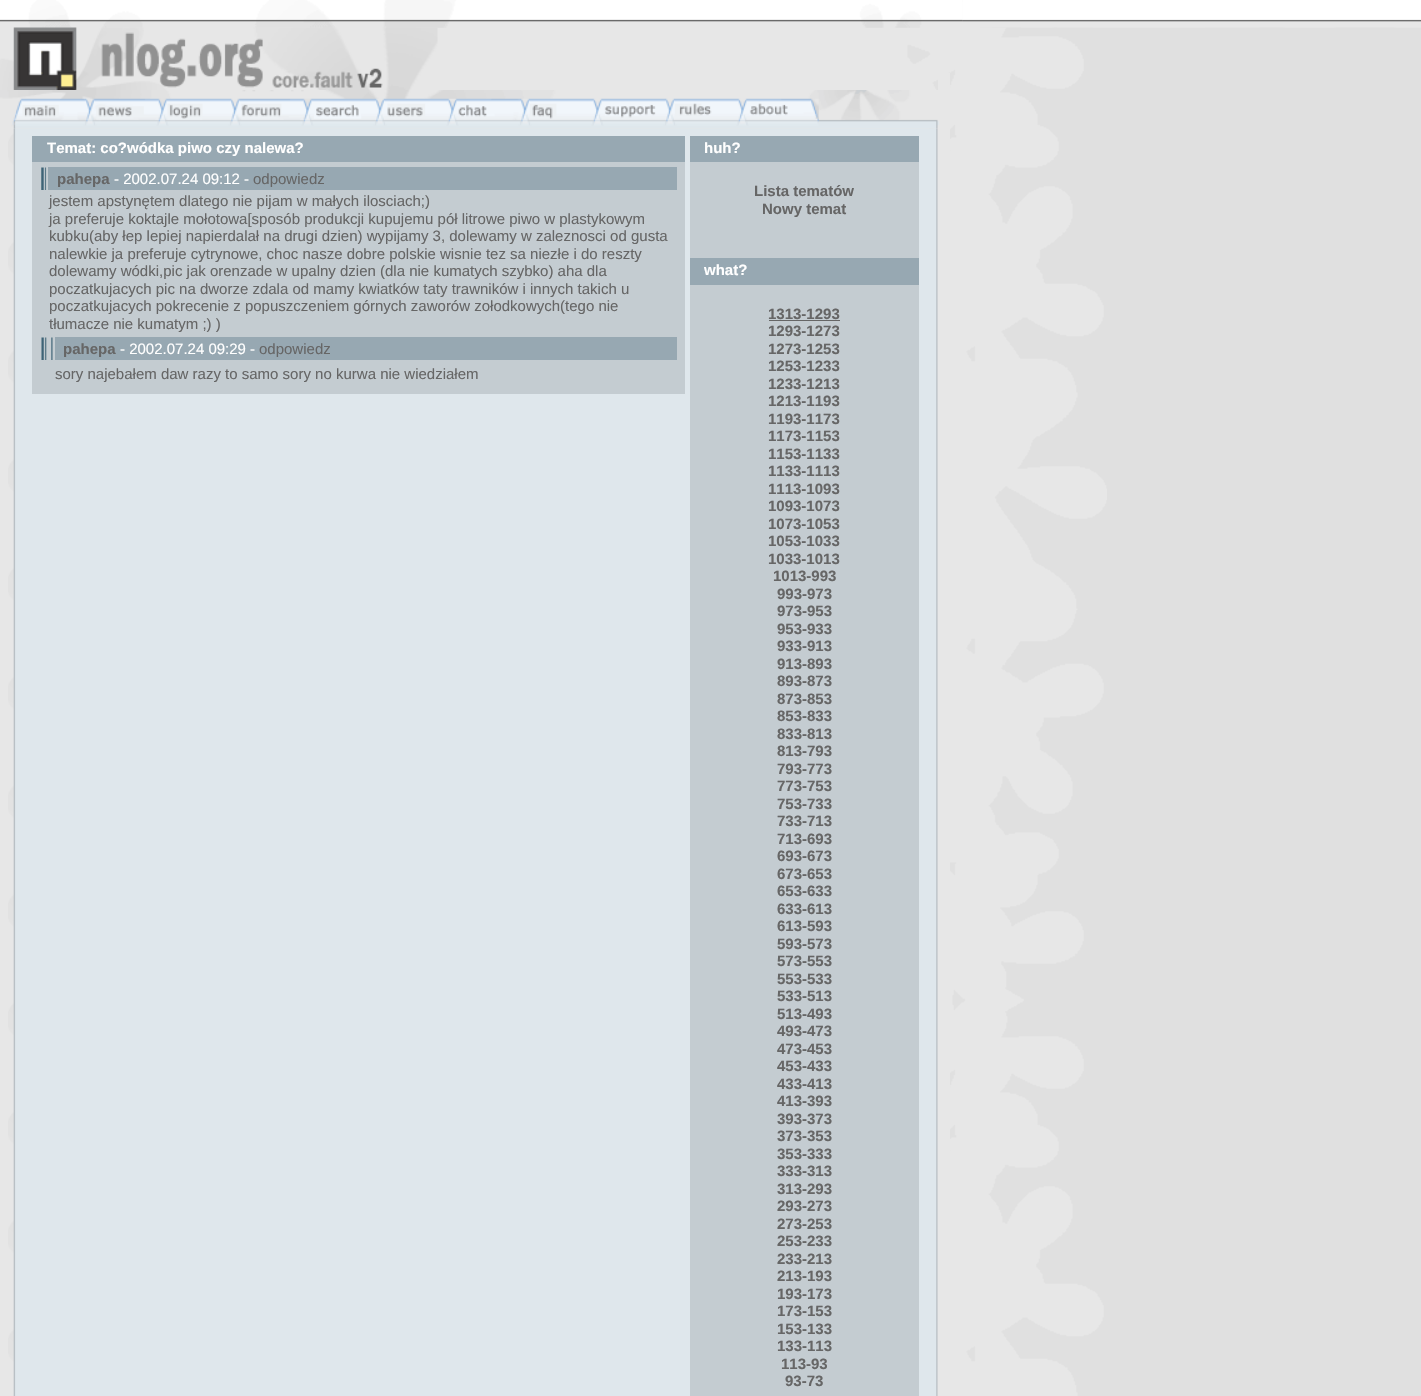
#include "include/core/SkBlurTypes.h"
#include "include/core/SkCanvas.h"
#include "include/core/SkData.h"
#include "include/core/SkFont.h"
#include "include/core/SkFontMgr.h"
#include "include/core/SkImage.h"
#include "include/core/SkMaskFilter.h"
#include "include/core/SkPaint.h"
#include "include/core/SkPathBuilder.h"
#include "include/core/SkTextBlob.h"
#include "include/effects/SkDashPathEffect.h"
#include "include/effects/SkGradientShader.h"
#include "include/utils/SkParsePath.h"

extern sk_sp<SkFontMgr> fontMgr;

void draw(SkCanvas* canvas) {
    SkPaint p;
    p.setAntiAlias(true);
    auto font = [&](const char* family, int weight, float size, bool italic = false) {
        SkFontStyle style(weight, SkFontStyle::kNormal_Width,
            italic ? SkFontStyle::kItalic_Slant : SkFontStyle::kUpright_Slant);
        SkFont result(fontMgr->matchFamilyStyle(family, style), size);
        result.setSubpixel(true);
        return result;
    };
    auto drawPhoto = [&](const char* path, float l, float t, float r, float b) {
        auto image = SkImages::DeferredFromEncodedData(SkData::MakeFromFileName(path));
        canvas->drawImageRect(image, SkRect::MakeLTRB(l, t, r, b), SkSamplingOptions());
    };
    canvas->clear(0xFFE0E0E0);
    drawPhoto("media/1.png", 0, 0, 1107, 1396);
    drawPhoto("media/2.png", 0, 0, 963, 28);
    drawPhoto("media/3.png", 962, 0, 1421, 28);
    drawPhoto("media/4.png", 0, 27, 438, 90);
    p.setColor(0xFFE7E7E7);
    canvas->drawRect(SkRect::MakeLTRB(938, 73, 950, 90), p);
    drawPhoto("media/6.png", 8, 128, 21, 1396);
    drawPhoto("media/9.png", 930, 128, 950, 1396);
    drawPhoto("media/5.png", 0, 90, 949, 129);
    p.setColor(0xFFDFE7EC);
    canvas->drawRect(SkRect::MakeLTRB(21, 129, 930, 1396), p);
    p.setColor(0xFF97A8B2);
    canvas->drawRect(SkRect::MakeLTRB(32, 136, 685, 162), p);
    auto font1 = font("Liberation Sans", 700, 15);
    p.setColor(0xFFFFFFFF);
    canvas->drawString("Temat: co?wódka piwo czy nalewa?", 47, 153, font1, p);
    p.setColor(0xFFC4CCD1);
    canvas->drawRect(SkRect::MakeLTRB(32, 162, 685, 394), p);
    drawPhoto("media/7.png", 41, 167, 47, 190);
    p.setColor(0xFF97A8B2);
    canvas->drawRect(SkRect::MakeLTRB(48, 167, 677, 190), p);
    p.setColor(0xFF666666);
    canvas->drawString("pahepa", 57, 184, font1, p);
    auto font2 = font("Liberation Sans", 400, 15);
    p.setColor(0xFFFFFFFF);
    canvas->drawString("- 2002.07.24 09:12 -", 114, 184, font2, p);
    p.setColor(0xFF666666);
    {
        const struct { const char* s; float x, y; } items[] = {
            {"odpowiedz", 253, 184},
            {"jestem apstynętem dlatego nie pijam w małych ilosciach;)", 49, 206},
            {"ja preferuje koktajle mołotowa[sposób produkcji kupujemu pół litrowe piwo w plastykowym", 49, 224},
            {"kubku(aby łep lepiej napierdalał na drugi dzien) wypijamy 3, dolewamy w zaleznosci od gusta", 49, 241},
            {"nalewkie ja preferuje cytrynowe, choc nasze dobre polskie wisnie tez sa niezłe i do reszty", 49, 259},
            {"dolewamy wódki,pic jak orenzade w upalny dzien (dla nie kumatych szybko) aha dla", 49, 276},
            {"poczatkujacych pic na dworze zdala od mamy kwiatków taty trawników i innych takich u", 49, 294},
            {"poczatkujacych pokrecenie z popuszczeniem górnych zaworów zołodkowych(tego nie", 49, 311},
            {"tłumacze nie kumatym ;) )", 49, 329},
        };
        for (auto [s, x, y] : items) {
            canvas->drawString(s, x, y, font2, p);
        }
    }
    drawPhoto("media/8.png", 41, 337, 53, 360);
    p.setColor(0xFF97A8B2);
    canvas->drawRect(SkRect::MakeLTRB(55, 337, 677, 360), p);
    p.setColor(0xFF666666);
    canvas->drawString("pahepa", 63, 354, font1, p);
    p.setColor(0xFFFFFFFF);
    canvas->drawString("- 2002.07.24 09:29 -", 120, 354, font2, p);
    p.setColor(0xFF666666);
    canvas->drawString("odpowiedz", 259, 354, font2, p);
    canvas->drawString("sory najebałem daw razy to samo sory no kurwa nie wiedziałem", 55, 379, font2, p);
    p.setColor(0xFF97A8B2);
    canvas->drawRect(SkRect::MakeLTRB(690, 136, 919, 162), p);
    p.setColor(0xFFFFFFFF);
    canvas->drawString("huh?", 704, 153, font1, p);
    p.setColor(0xFFC4CCD1);
    canvas->drawRect(SkRect::MakeLTRB(690, 162, 919, 258), p);
    p.setColor(0xFF666666);
    canvas->drawString("Lista tematów", 754, 196, font1, p);
    canvas->drawString("Nowy temat", 762, 214, font1, p);
    p.setColor(0xFF97A8B2);
    canvas->drawRect(SkRect::MakeLTRB(690, 258, 919, 285), p);
    p.setColor(0xFFFFFFFF);
    canvas->drawString("what?", 704, 275, font1, p);
    p.setColor(0xFFC4CCD1);
    canvas->drawRect(SkRect::MakeLTRB(690, 285, 919, 1396), p);
    p.setColor(0xFF666666);
    canvas->drawString("1313-1293", 768, 319, font1, p);
    canvas->drawRect(SkRect::MakeLTRB(769, 320, 840, 321), p);
    {
        const struct { const char* s; float x, y; } items[] = {
            {"1293-1273", 768, 336},
            {"1273-1253", 768, 354},
            {"1253-1233", 768, 371},
            {"1233-1213", 768, 389},
            {"1213-1193", 768, 406},
            {"1193-1173", 768, 424},
            {"1173-1153", 768, 441},
            {"1153-1133", 768, 459},
            {"1133-1113", 768, 476},
            {"1113-1093", 768, 494},
            {"1093-1073", 768, 511},
            {"1073-1053", 768, 529},
            {"1053-1033", 768, 546},
            {"1033-1013", 768, 564},
            {"1013-993", 773, 581},
            {"993-973", 777, 599},
            {"973-953", 777, 616},
            {"953-933", 777, 634},
            {"933-913", 777, 651},
            {"913-893", 777, 669},
            {"893-873", 777, 686},
            {"873-853", 777, 704},
            {"853-833", 777, 721},
            {"833-813", 777, 739},
            {"813-793", 777, 756},
            {"793-773", 777, 774},
            {"773-753", 777, 791},
            {"753-733", 777, 809},
            {"733-713", 777, 826},
            {"713-693", 777, 844},
            {"693-673", 777, 861},
            {"673-653", 777, 879},
            {"653-633", 777, 896},
            {"633-613", 777, 914},
            {"613-593", 777, 931},
            {"593-573", 777, 949},
            {"573-553", 777, 966},
            {"553-533", 777, 984},
            {"533-513", 777, 1001},
            {"513-493", 777, 1019},
            {"493-473", 777, 1036},
            {"473-453", 777, 1054},
            {"453-433", 777, 1071},
            {"433-413", 777, 1089},
            {"413-393", 777, 1106},
            {"393-373", 777, 1124},
            {"373-353", 777, 1141},
            {"353-333", 777, 1159},
            {"333-313", 777, 1176},
            {"313-293", 777, 1194},
            {"293-273", 777, 1211},
            {"273-253", 777, 1229},
            {"253-233", 777, 1246},
            {"233-213", 777, 1264},
            {"213-193", 777, 1281},
            {"193-173", 777, 1299},
            {"173-153", 777, 1316},
            {"153-133", 777, 1334},
            {"133-113", 777, 1351},
            {"113-93", 781, 1369},
            {"93-73", 785, 1386},
        };
        for (auto [s, x, y] : items) {
            canvas->drawString(s, x, y, font1, p);
        }
    }
}
